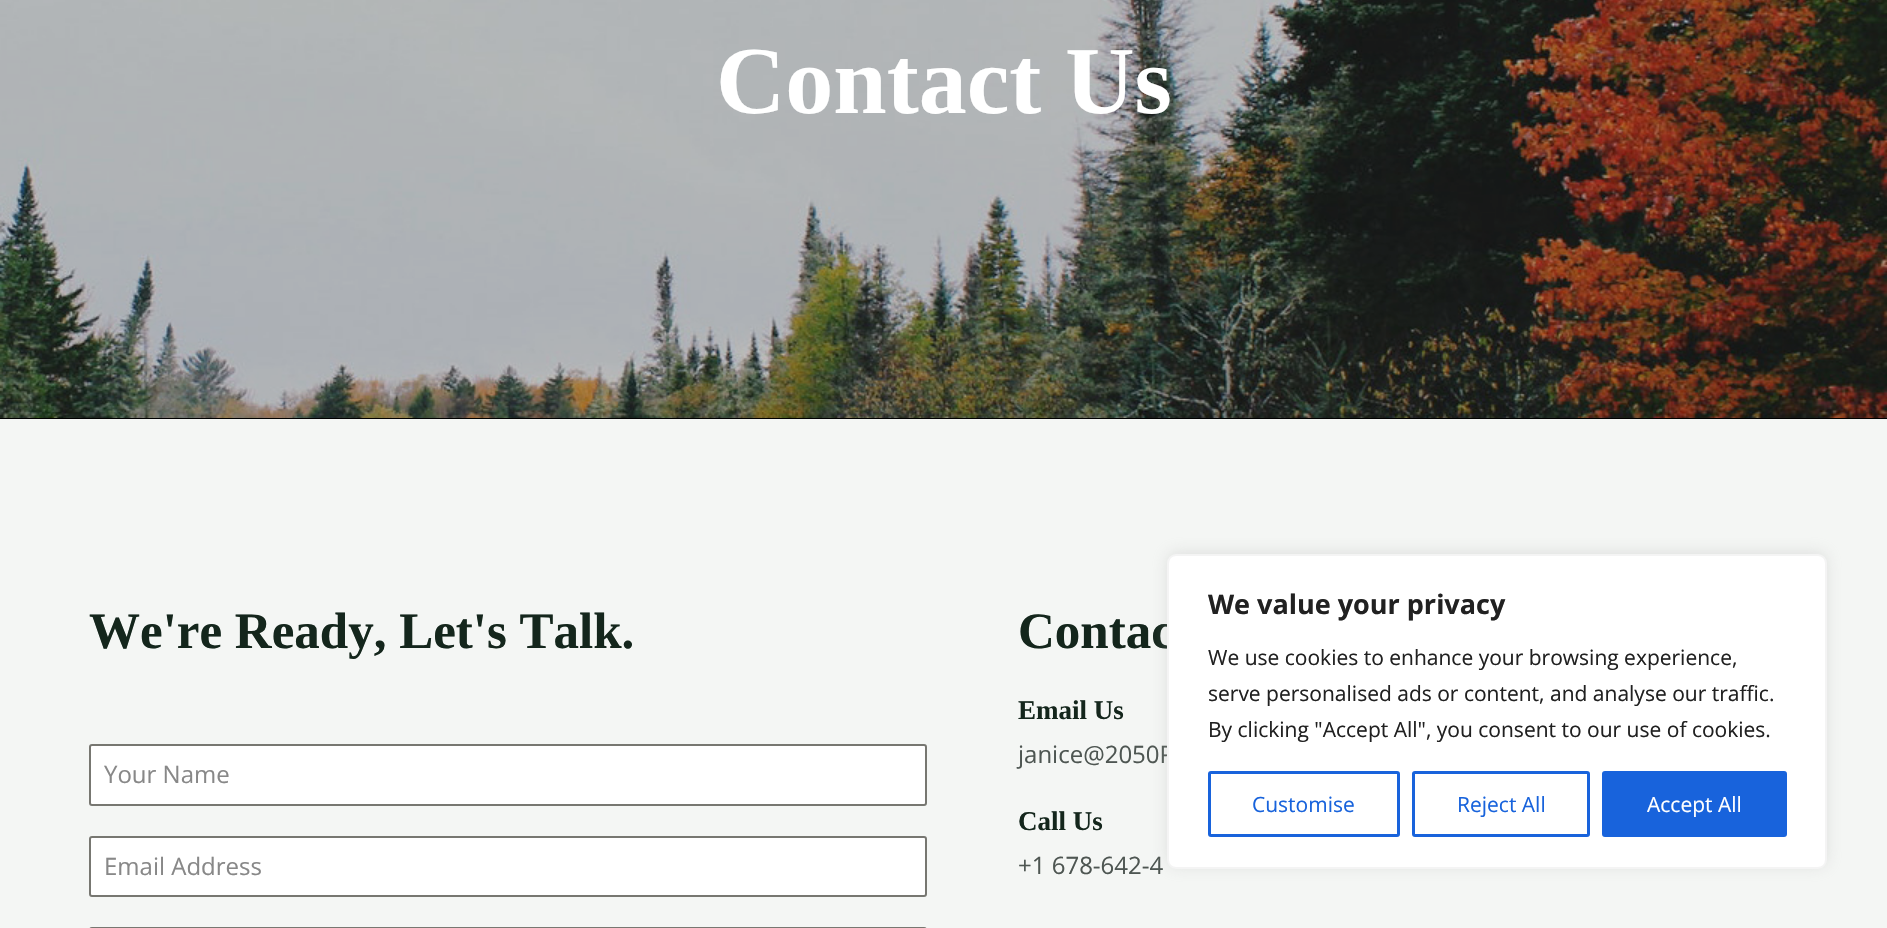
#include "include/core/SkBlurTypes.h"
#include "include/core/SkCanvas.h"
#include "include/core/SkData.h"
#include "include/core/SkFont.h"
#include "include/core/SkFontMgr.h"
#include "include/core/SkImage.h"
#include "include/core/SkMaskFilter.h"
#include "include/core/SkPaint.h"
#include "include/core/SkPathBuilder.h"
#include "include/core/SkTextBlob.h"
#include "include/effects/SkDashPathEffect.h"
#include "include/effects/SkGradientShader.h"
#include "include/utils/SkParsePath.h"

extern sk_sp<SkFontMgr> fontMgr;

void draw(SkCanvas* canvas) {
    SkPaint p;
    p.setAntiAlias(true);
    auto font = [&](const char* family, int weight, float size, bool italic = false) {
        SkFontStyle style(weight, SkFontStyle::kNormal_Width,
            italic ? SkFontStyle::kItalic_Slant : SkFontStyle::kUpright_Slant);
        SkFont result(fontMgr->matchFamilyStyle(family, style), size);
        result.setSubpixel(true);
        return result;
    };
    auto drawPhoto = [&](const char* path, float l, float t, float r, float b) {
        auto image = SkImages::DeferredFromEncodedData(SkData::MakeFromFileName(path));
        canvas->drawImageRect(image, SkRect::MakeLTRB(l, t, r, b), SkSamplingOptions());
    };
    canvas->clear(0xFFF4F6F4);
    p.setColor(0xFF000000);
    canvas->drawRect(SkRect::MakeLTRB(0, 418, 1887, 419), p);
    drawPhoto("media/1.png", 0, 0, 1887, 418);
    auto font1 = font("Liberation Serif", 700, 96);
    p.setColor(0xFFFFFFFF);
    canvas->drawString("Contact Us", 716, 113, font1, p);
    auto font2 = font("Liberation Serif", 700, 51);
    p.setColor(0xFF14261C);
    canvas->drawString("We're Ready, Let's Talk.", 89, 648, font2, p);
    p.setColor(0xFFFFFFFF);
    canvas->drawRoundRect(SkRect::MakeLTRB(90, 745, 926, 805), 2, 2, p);
    p.setStyle(SkPaint::kStroke_Style);
    p.setStrokeWidth(2);
    p.setColor(0xFF777771);
    canvas->drawRoundRect(SkRect::MakeLTRB(90, 745, 926, 805), 2, 2, p);
    auto font3 = font("Open Sans", 400, 24);
    p.setStyle(SkPaint::kFill_Style);
    p.setColor(0xFF888888);
    canvas->drawString("Your Name", 104, 783, font3, p);
    p.setColor(0xFFFFFFFF);
    canvas->drawRoundRect(SkRect::MakeLTRB(90, 837, 926, 896), 2, 2, p);
    p.setStyle(SkPaint::kStroke_Style);
    p.setColor(0xFF777771);
    canvas->drawRoundRect(SkRect::MakeLTRB(90, 837, 926, 896), 2, 2, p);
    p.setStyle(SkPaint::kFill_Style);
    p.setColor(0xFF888888);
    canvas->drawString("Email Address", 104, 875, font3, p);
    p.setStyle(SkPaint::kStroke_Style);
    p.setColor(0xFF777771);
    canvas->drawRoundRect(SkRect::MakeLTRB(90, 928, 926, 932), 2, 2, p);
    p.setStyle(SkPaint::kFill_Style);
    p.setColor(0xFF14261C);
    canvas->drawString("Contac", 1018, 648, font2, p);
    auto font4 = font("Liberation Serif", 700, 27);
    canvas->drawString("Email Us", 1018, 719, font4, p);
    p.setColor(0xFF4E5652);
    canvas->drawString("janice@2050P", 1018, 763, font3, p);
    p.setColor(0xFF14261C);
    canvas->drawString("Call Us", 1018, 830, font4, p);
    p.setColor(0xFF4E5652);
    canvas->drawString("+1 678-642-4", 1018, 874, font3, p);
    p.setColor(0x4DACABAB);
    p.setMaskFilter(SkMaskFilter::MakeBlur(kNormal_SkBlurStyle, 7.5f));
    canvas->drawRoundRect(SkRect::MakeLTRB(1167, 552, 1827, 867), 9, 9, p);
    p.setMaskFilter(nullptr);
    p.setColor(0xFFFFFFFF);
    canvas->drawRoundRect(SkRect::MakeLTRB(1168, 555, 1826, 868), 8, 8, p);
    p.setStyle(SkPaint::kStroke_Style);
    p.setColor(0xFFF4F4F4);
    canvas->drawRoundRect(SkRect::MakeLTRB(1168, 555, 1826, 868), 8, 8, p);
    auto font5 = font("Open Sans", 700, 27);
    p.setStyle(SkPaint::kFill_Style);
    p.setColor(0xFF212121);
    canvas->drawString("We value your privacy", 1208, 614, font5, p);
    auto font6 = font("Open Sans", 400, 21);
    {
        const struct { const char* s; float x, y; } items[] = {
            {"We use cookies to enhance your browsing experience,", 1208, 665},
            {"serve personalised ads or content, and analyse our traffic.", 1208, 701},
            {"By clicking \"Accept All\", you consent to our use of cookies.", 1208, 737},
        };
        for (auto [s, x, y] : items) {
            canvas->drawString(s, x, y, font6, p);
        }
    }
    p.setStyle(SkPaint::kStroke_Style);
    p.setStrokeWidth(3);
    p.setColor(0xFF1863DC);
    canvas->drawRoundRect(SkRect::MakeLTRB(1209.5f, 772.5f, 1398.5f, 835.5f), 1.5f, 1.5f, p);
    p.setStyle(SkPaint::kFill_Style);
    canvas->drawString("Customise", 1252, 812, font6, p);
    p.setStyle(SkPaint::kStroke_Style);
    canvas->drawRoundRect(SkRect::MakeLTRB(1413.5f, 772.5f, 1588.5f, 835.5f), 1.5f, 1.5f, p);
    p.setStyle(SkPaint::kFill_Style);
    canvas->drawString("Reject All", 1457, 812, font6, p);
    canvas->drawRoundRect(SkRect::MakeLTRB(1603.5f, 772.5f, 1785.5f, 835.5f), 1.5f, 1.5f, p);
    p.setStyle(SkPaint::kStroke_Style);
    canvas->drawRoundRect(SkRect::MakeLTRB(1603.5f, 772.5f, 1785.5f, 835.5f), 1.5f, 1.5f, p);
    p.setStyle(SkPaint::kFill_Style);
    p.setColor(0xFFFFFFFF);
    canvas->drawString("Accept All", 1647, 812, font6, p);
}
